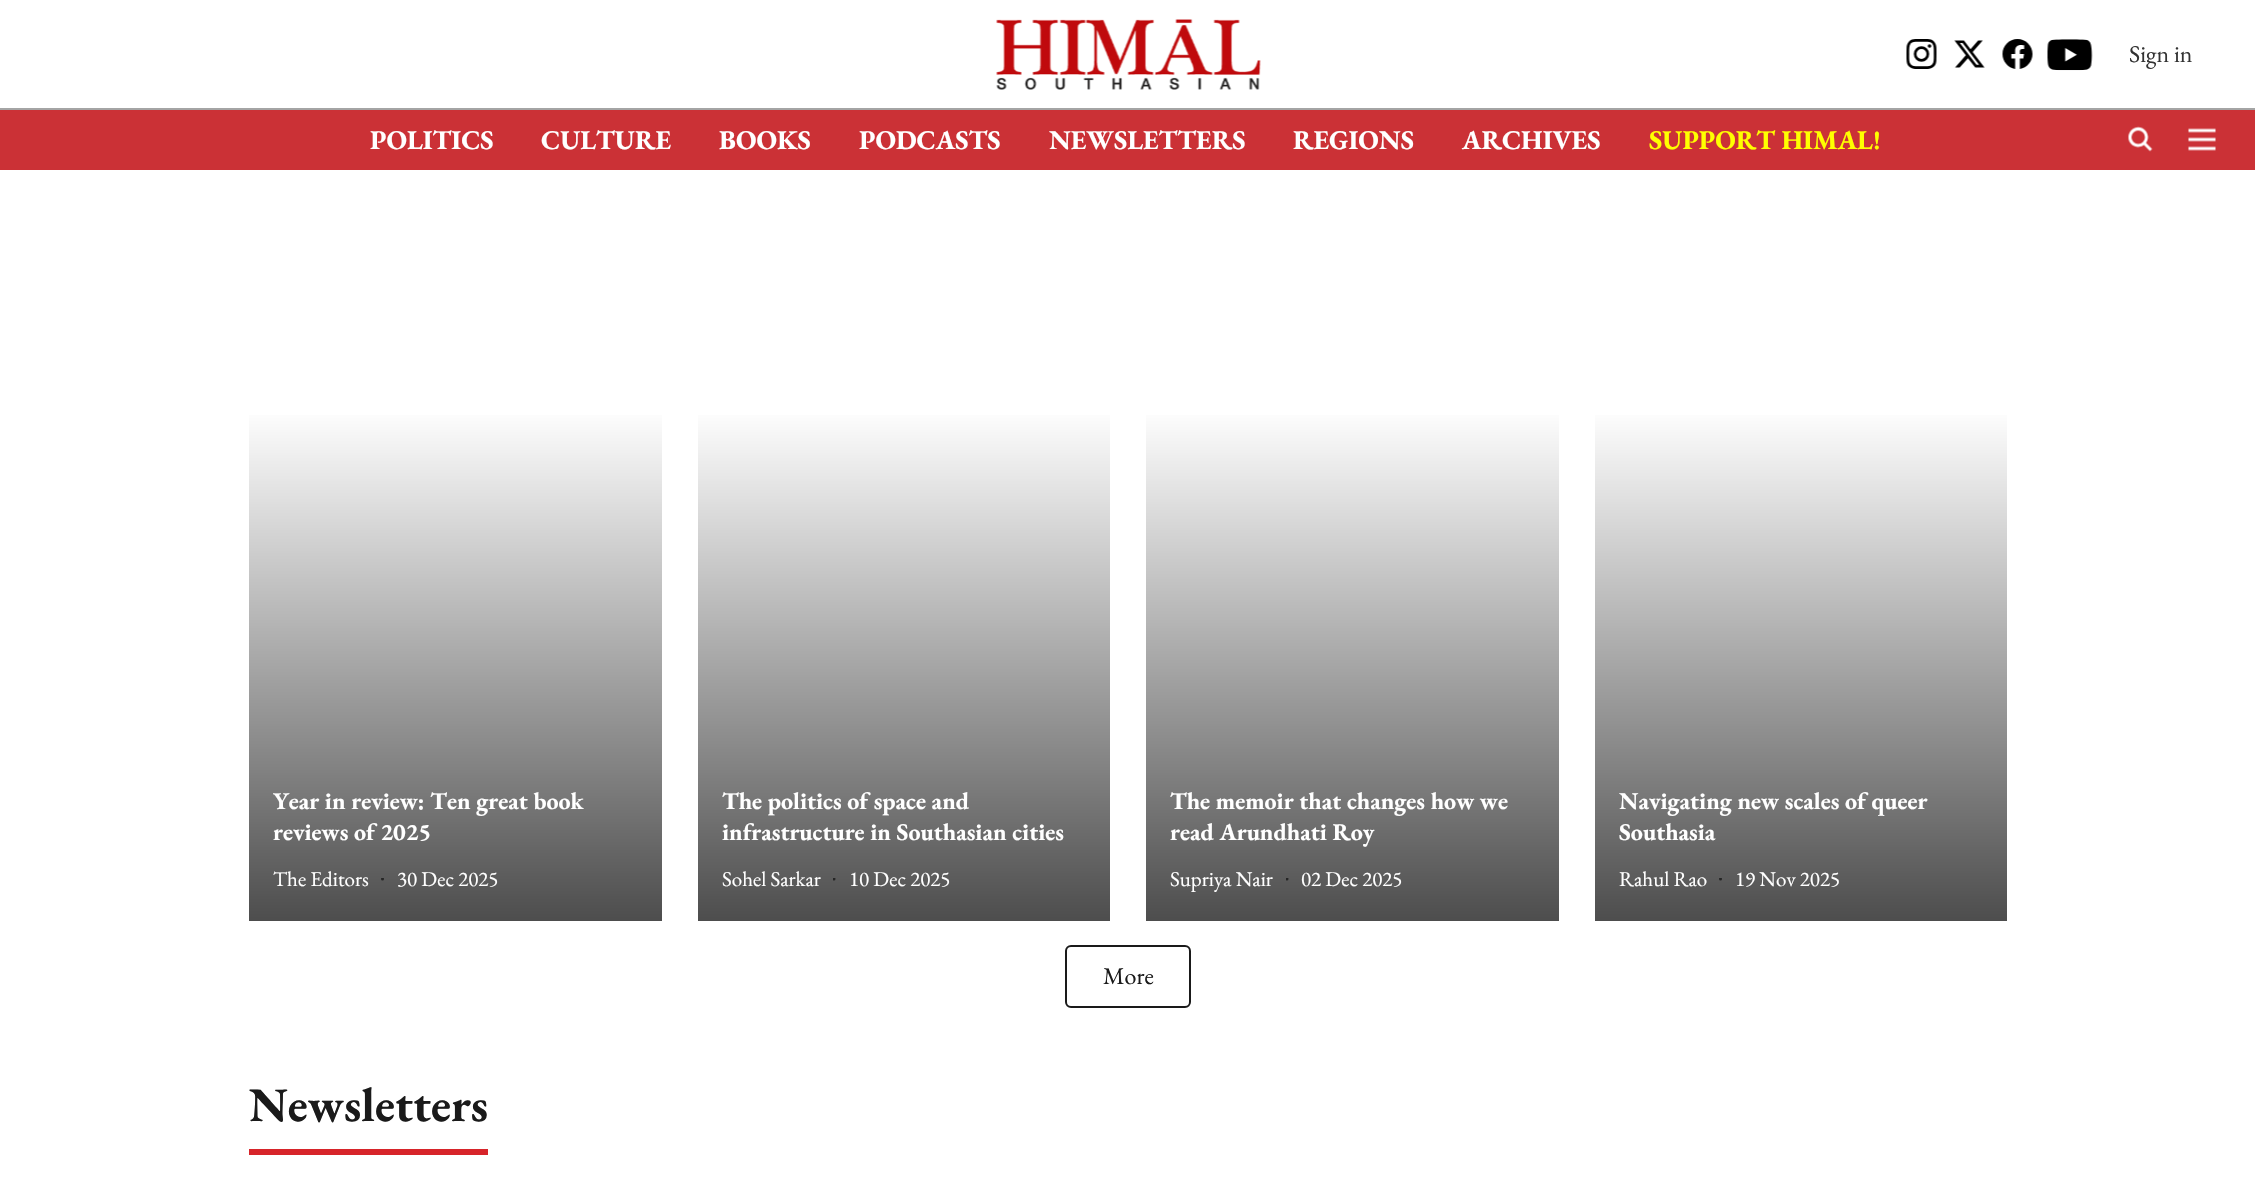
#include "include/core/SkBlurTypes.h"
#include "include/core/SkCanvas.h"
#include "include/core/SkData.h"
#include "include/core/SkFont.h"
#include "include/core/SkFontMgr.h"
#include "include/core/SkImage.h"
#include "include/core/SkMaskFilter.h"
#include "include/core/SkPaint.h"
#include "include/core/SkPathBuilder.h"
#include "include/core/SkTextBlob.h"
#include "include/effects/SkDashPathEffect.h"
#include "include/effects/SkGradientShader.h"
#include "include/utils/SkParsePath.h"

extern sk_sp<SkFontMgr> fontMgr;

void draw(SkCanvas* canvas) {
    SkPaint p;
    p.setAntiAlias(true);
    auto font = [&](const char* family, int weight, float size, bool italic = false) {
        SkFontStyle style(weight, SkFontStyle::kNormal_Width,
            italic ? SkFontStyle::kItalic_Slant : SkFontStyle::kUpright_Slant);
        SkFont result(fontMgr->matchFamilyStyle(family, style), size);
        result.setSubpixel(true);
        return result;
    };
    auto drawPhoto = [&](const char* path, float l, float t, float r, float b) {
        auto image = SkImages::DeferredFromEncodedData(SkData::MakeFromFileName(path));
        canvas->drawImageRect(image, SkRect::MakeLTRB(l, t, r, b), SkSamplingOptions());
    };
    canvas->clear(0xFFFFFFFF);
    p.setColor(0xFFA4A4A4);
    canvas->drawRect(SkRect::MakeLTRB(0, 108, 2255, 110), p);
    drawPhoto("media/1.png", 996, 19, 1261, 90);
    drawPhoto("media/2.png", 1906, 39, 1937, 69);
    drawPhoto("media/3.png", 1954, 40, 1985, 68);
    drawPhoto("media/4.png", 2002, 39, 2033, 69);
    drawPhoto("media/5.png", 2047, 39, 2093, 71);
    auto font1 = font("EB Garamond", 400, 24);
    p.setColor(0xFF333333);
    canvas->drawString("Sign in", 2129, 62, font1, p);
    p.setColor(0xFFCB3136);
    canvas->drawRect(SkRect::MakeLTRB(0, 110, 2255, 170), p);
    auto font2 = font("EB Garamond", 700, 27);
    p.setColor(0xFFFFFFFF);
    {
        const struct { const char* s; float x, y; } items[] = {
            {"POLITICS", 370, 149},
            {"CULTURE", 541, 149},
            {"BOOKS", 719, 149},
            {"PODCASTS", 859, 149},
            {"NEWSLETTERS", 1049, 149},
            {"REGIONS", 1293, 149},
            {"ARCHIVES", 1462, 149},
        };
        for (auto [s, x, y] : items) {
            canvas->drawString(s, x, y, font2, p);
        }
    }
    p.setColor(0xFFFFFF00);
    canvas->drawString("SUPPORT HIMAL!", 1649, 149, font2, p);
    drawPhoto("media/6.png", 2128, 126, 2153, 152);
    drawPhoto("media/7.png", 2188, 128, 2216, 151);
    {
        const SkColor colors[] = {0xFF4D4D4D, 0xFFFFFFFF, 0xFFFFFFFF};
        const float stops[] = {0, 0.7f, 1};
        const SkPoint ends[] = {{455, 921}, {455, 188}};
        p.setShader(SkGradientShader::MakeLinear(ends, colors, stops, 3, SkTileMode::kClamp));
        p.setAlpha(255);
    }
    canvas->drawRect(SkRect::MakeLTRB(249, 415, 662, 921), p);
    auto font3 = font("EB Garamond", 700, 24);
    p.setShader(nullptr);
    p.setColor(0xFFFFFFFF);
    canvas->drawString("Year in review: Ten great book", 273, 809, font3, p);
    canvas->drawString("reviews of 2025", 273, 840, font3, p);
    auto font4 = font("EB Garamond", 400, 21);
    canvas->drawString("The Editors", 273, 886, font4, p);
    canvas->save();
    canvas->clipRect(SkRect::MakeLTRB(381, 878, 386, 883));
    p.setColor(0xFF252525);
    canvas->drawCircle(382.5f, 879, 1.5f, p);
    canvas->restore();
    p.setColor(0xFFFFFFFF);
    canvas->drawString("30 Dec 2025", 397, 886, font4, p);
    {
        const SkColor colors[] = {0xFF4D4D4D, 0xFFFFFFFF, 0xFFFFFFFF};
        const float stops[] = {0, 0.7f, 1};
        const SkPoint ends[] = {{904, 921}, {904, 188}};
        p.setShader(SkGradientShader::MakeLinear(ends, colors, stops, 3, SkTileMode::kClamp));
        p.setAlpha(255);
    }
    canvas->drawRect(SkRect::MakeLTRB(698, 415, 1110, 921), p);
    p.setShader(nullptr);
    p.setColor(0xFFFFFFFF);
    canvas->drawString("The politics of space and", 722, 809, font3, p);
    canvas->drawString("infrastructure in Southasian cities", 722, 840, font3, p);
    canvas->drawString("Sohel Sarkar", 722, 886, font4, p);
    canvas->save();
    canvas->clipRect(SkRect::MakeLTRB(833, 878, 838, 883));
    p.setColor(0xFF252525);
    canvas->drawCircle(834, 879, 1.5f, p);
    canvas->restore();
    p.setColor(0xFFFFFFFF);
    canvas->drawString("10 Dec 2025", 849, 886, font4, p);
    {
        const SkColor colors[] = {0xFF4D4D4D, 0xFFFFFFFF, 0xFFFFFFFF};
        const float stops[] = {0, 0.7f, 1};
        const SkPoint ends[] = {{1352, 921}, {1352, 188}};
        p.setShader(SkGradientShader::MakeLinear(ends, colors, stops, 3, SkTileMode::kClamp));
        p.setAlpha(255);
    }
    canvas->drawRect(SkRect::MakeLTRB(1146, 415, 1559, 921), p);
    p.setShader(nullptr);
    p.setColor(0xFFFFFFFF);
    canvas->drawString("The memoir that changes how we", 1170, 809, font3, p);
    canvas->drawString("read Arundhati Roy", 1170, 840, font3, p);
    canvas->drawString("Supriya Nair", 1170, 886, font4, p);
    canvas->save();
    canvas->clipRect(SkRect::MakeLTRB(1286, 878, 1291, 883));
    p.setColor(0xFF252525);
    canvas->drawCircle(1287, 879, 1.5f, p);
    canvas->restore();
    p.setColor(0xFFFFFFFF);
    canvas->drawString("02 Dec 2025", 1301, 886, font4, p);
    {
        const SkColor colors[] = {0xFF4D4D4D, 0xFFFFFFFF, 0xFFFFFFFF};
        const float stops[] = {0, 0.7f, 1};
        const SkPoint ends[] = {{1801, 921}, {1801, 188}};
        p.setShader(SkGradientShader::MakeLinear(ends, colors, stops, 3, SkTileMode::kClamp));
        p.setAlpha(255);
    }
    canvas->drawRect(SkRect::MakeLTRB(1595, 415, 2007, 921), p);
    p.setShader(nullptr);
    p.setColor(0xFFFFFFFF);
    canvas->drawString("Navigating new scales of queer", 1619, 809, font3, p);
    canvas->drawString("Southasia", 1619, 840, font3, p);
    canvas->drawString("Rahul Rao", 1619, 886, font4, p);
    canvas->save();
    canvas->clipRect(SkRect::MakeLTRB(1719, 878, 1724, 883));
    p.setColor(0xFF252525);
    canvas->drawCircle(1720.5f, 879, 1.5f, p);
    canvas->restore();
    p.setColor(0xFFFFFFFF);
    canvas->drawString("19 Nov 2025", 1735, 886, font4, p);
    p.setStyle(SkPaint::kStroke_Style);
    p.setStrokeWidth(2);
    p.setColor(0xFF1A1A1A);
    canvas->drawRoundRect(SkRect::MakeLTRB(1066, 946, 1190, 1007), 5, 5, p);
    p.setStyle(SkPaint::kFill_Style);
    canvas->drawString("More", 1103, 984, font1, p);
    p.setColor(0xFFD7242A);
    canvas->drawRect(SkRect::MakeLTRB(249, 1149, 488, 1155), p);
    auto font5 = font("EB Garamond", 700, 48);
    p.setColor(0xFF1A1A1A);
    canvas->drawString("Newsletters", 249, 1121, font5, p);
}
